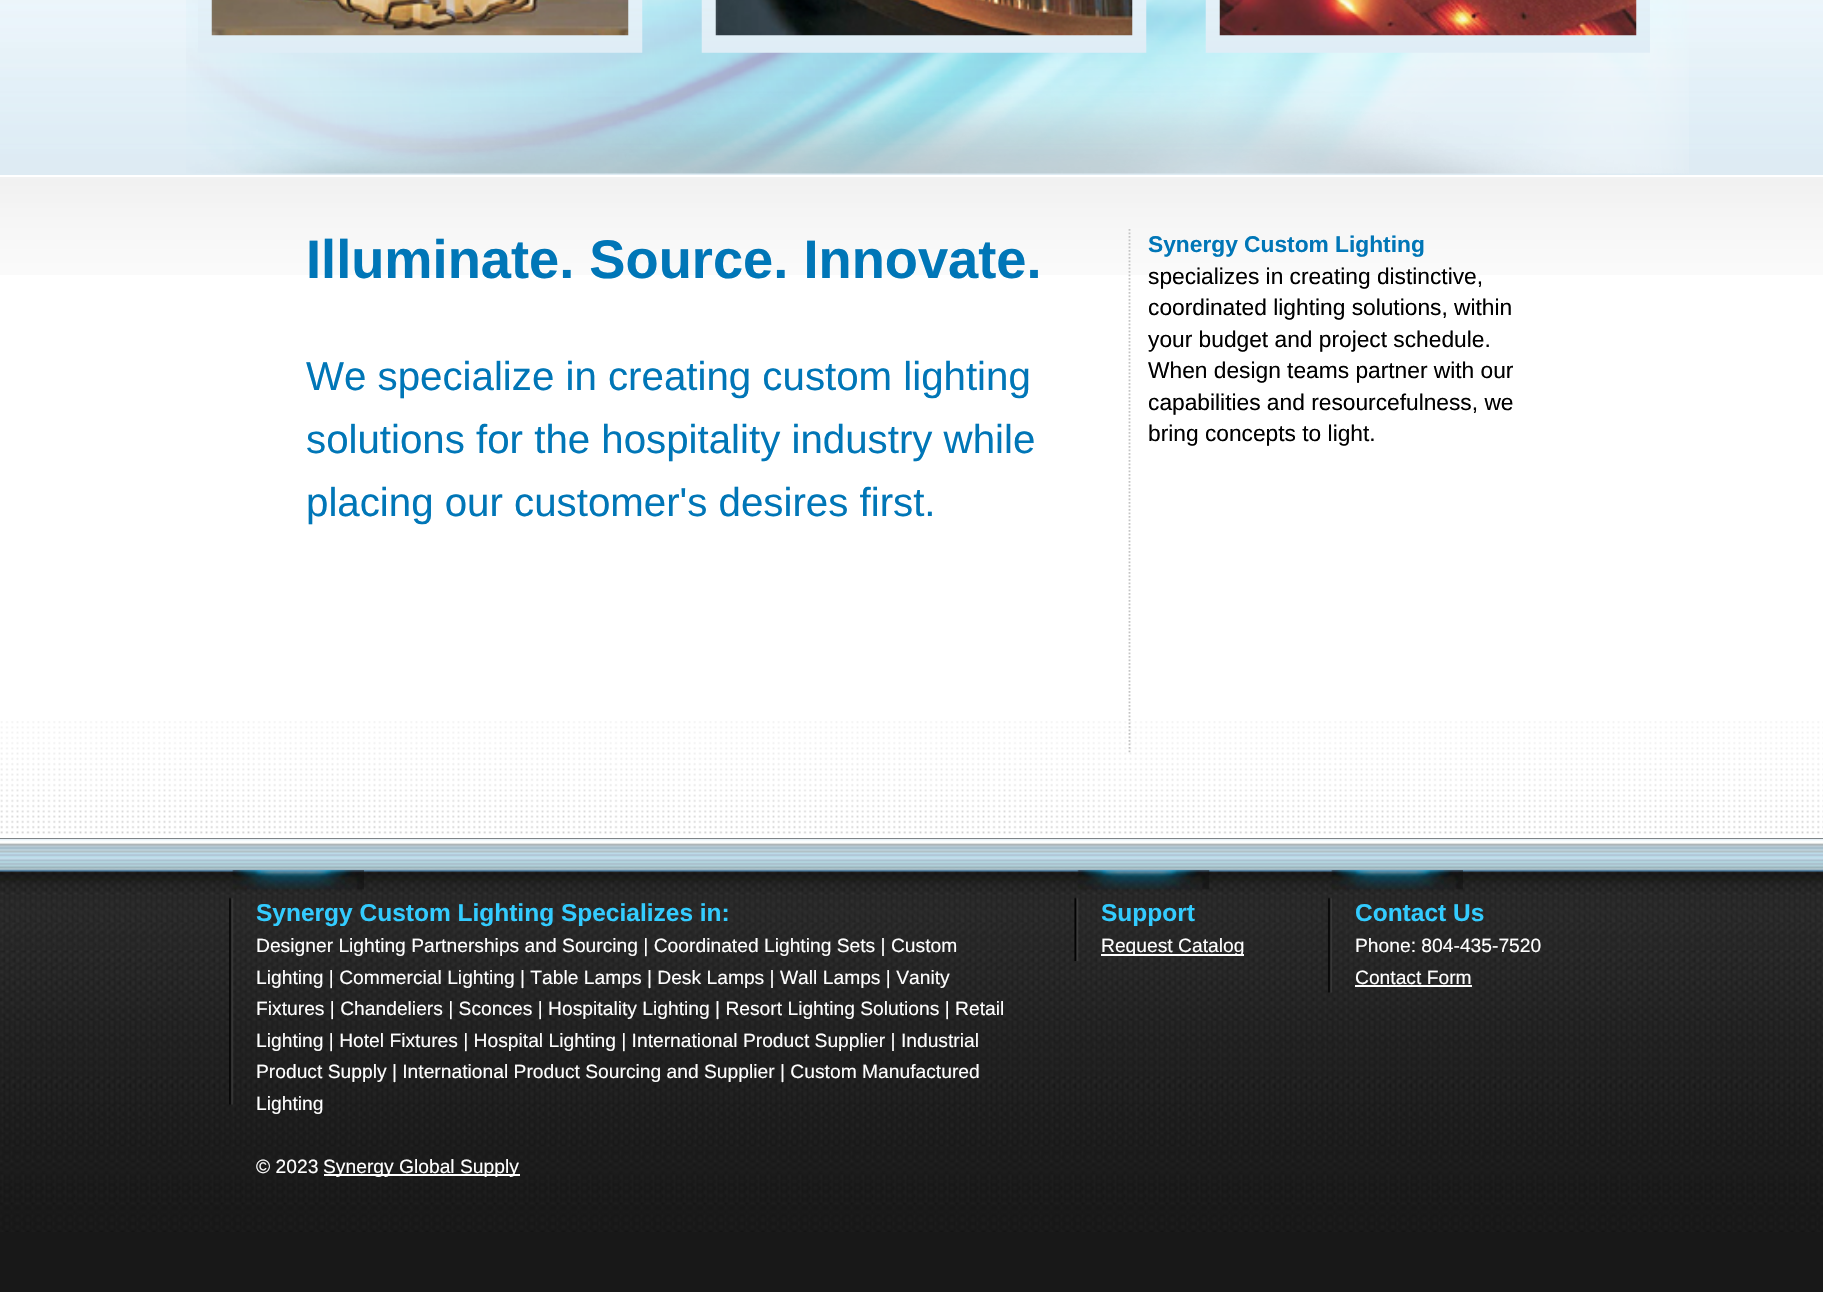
#include "include/core/SkBlurTypes.h"
#include "include/core/SkCanvas.h"
#include "include/core/SkData.h"
#include "include/core/SkFont.h"
#include "include/core/SkFontMgr.h"
#include "include/core/SkImage.h"
#include "include/core/SkMaskFilter.h"
#include "include/core/SkPaint.h"
#include "include/core/SkPathBuilder.h"
#include "include/core/SkTextBlob.h"
#include "include/effects/SkDashPathEffect.h"
#include "include/effects/SkGradientShader.h"
#include "include/utils/SkParsePath.h"

extern sk_sp<SkFontMgr> fontMgr;

void draw(SkCanvas* canvas) {
    SkPaint p;
    p.setAntiAlias(true);
    auto font = [&](const char* family, int weight, float size, bool italic = false) {
        SkFontStyle style(weight, SkFontStyle::kNormal_Width,
            italic ? SkFontStyle::kItalic_Slant : SkFontStyle::kUpright_Slant);
        SkFont result(fontMgr->matchFamilyStyle(family, style), size);
        result.setSubpixel(true);
        return result;
    };
    auto drawPhoto = [&](const char* path, float l, float t, float r, float b) {
        auto image = SkImages::DeferredFromEncodedData(SkData::MakeFromFileName(path));
        canvas->drawImageRect(image, SkRect::MakeLTRB(l, t, r, b), SkSamplingOptions());
    };
    canvas->clear(0xFF181818);
    drawPhoto("media/1.png", 0, 0, 1823, 175);
    p.setColor(0xFFFFFFFF);
    canvas->drawRect(SkRect::MakeLTRB(0, 175, 1823, 177), p);
    drawPhoto("media/2.png", 186, 0, 1689, 174);
    drawPhoto("media/3.png", 198, 0, 643, 53);
    drawPhoto("media/4.png", 211, 0, 629, 36);
    drawPhoto("media/5.png", 701, 0, 1147, 53);
    drawPhoto("media/6.png", 715, 0, 1133, 36);
    drawPhoto("media/7.png", 1205, 0, 1650, 53);
    drawPhoto("media/8.png", 1219, 0, 1637, 36);
    canvas->drawRect(SkRect::MakeLTRB(0, 275, 1823, 838), p);
    drawPhoto("media/9.png", 0, 721, 1823, 834);
    drawPhoto("media/10.png", 0, 177, 1823, 275);
    auto font1 = font("Liberation Sans", 700, 54.25f);
    p.setColor(0xFF0076B7);
    canvas->drawString("Illuminate. Source. Innovate.", 306, 278, font1, p);
    auto font2 = font("Liberation Sans", 400, 40.25f);
    {
        const struct { const char* s; float x, y; } items[] = {
            {"We specialize in creating custom lighting", 306, 390},
            {"solutions for the hospitality industry while", 306, 453},
            {"placing our customer's desires first.", 306, 516},
        };
        for (auto [s, x, y] : items) {
            canvas->drawString(s, x, y, font2, p);
        }
    }
    p.setStyle(SkPaint::kStroke_Style);
    p.setStrokeWidth(1.8f);
    p.setColor(0xFFC4C4C4);
    p.setPathEffect(SkDashPathEffect::Make({{1.75f, 1.75f}}, 0));
    canvas->drawPath(SkPathBuilder().moveTo(1129.5f, 229).lineTo(1129.5f, 754).detach(), p);
    p.setPathEffect(nullptr);
    auto font3 = font("Liberation Sans", 700, 22.75f);
    p.setStyle(SkPaint::kFill_Style);
    p.setColor(0xFF0076B7);
    canvas->drawString("Synergy Custom Lighting", 1148, 252, font3, p);
    auto font4 = font("Liberation Sans", 400, 22.75f);
    p.setColor(0xFF000000);
    {
        const struct { const char* s; float x, y; } items[] = {
            {"specializes in creating distinctive,", 1148, 284},
            {"coordinated lighting solutions, within", 1148, 315},
            {"your budget and project schedule.", 1148, 347},
            {"When design teams partner with our", 1148, 378},
            {"capabilities and resourcefulness, we", 1148, 410},
            {"bring concepts to light.", 1148, 441},
        };
        for (auto [s, x, y] : items) {
            canvas->drawString(s, x, y, font4, p);
        }
    }
    drawPhoto("media/11.png", 0, 838, 1823, 1232);
    drawPhoto("media/12.png", 229, 870, 364, 1105);
    auto font5 = font("Liberation Sans", 700, 24.5f);
    p.setColor(0xFF33CCFF);
    canvas->drawString("Synergy Custom Lighting Specializes in:", 256, 921, font5, p);
    auto font6 = font("Liberation Sans", 400, 19.25f);
    p.setColor(0xFFFFFFFF);
    {
        const struct { const char* s; float x, y; } items[] = {
            {"Designer Lighting Partnerships and Sourcing | Coordinated Lighting Sets | Custom", 256, 952},
            {"Lighting | Commercial Lighting | Table Lamps | Desk Lamps | Wall Lamps | Vanity", 256, 984},
            {"Fixtures | Chandeliers | Sconces | Hospitality Lighting | Resort Lighting Solutions | Retail", 256, 1015},
            {"Lighting | Hotel Fixtures | Hospital Lighting | International Product Supplier | Industrial", 256, 1047},
            {"Product Supply | International Product Sourcing and Supplier | Custom Manufactured", 256, 1078},
            {"Lighting", 256, 1110},
            {"© 2023", 256, 1173},
        };
        for (auto [s, x, y] : items) {
            canvas->drawString(s, x, y, font6, p);
        }
    }
    canvas->drawRect(SkRect::MakeLTRB(324, 1174, 520, 1176), p);
    canvas->drawString("Synergy Global Supply", 323, 1173, font6, p);
    drawPhoto("media/13.png", 1074, 870, 1210, 961);
    p.setColor(0xFF33CCFF);
    canvas->drawString("Support", 1101, 921, font5, p);
    p.setColor(0xFFFFFFFF);
    canvas->drawRect(SkRect::MakeLTRB(1101, 954, 1244, 956), p);
    canvas->drawString("Request Catalog", 1101, 952, font6, p);
    drawPhoto("media/14.png", 1328, 870, 1463, 993);
    p.setColor(0xFF33CCFF);
    canvas->drawString("Contact Us", 1355, 921, font5, p);
    p.setColor(0xFFFFFFFF);
    canvas->drawString("Phone: 804-435-7520", 1355, 952, font6, p);
    canvas->drawString("Contact Form", 1355, 984, font6, p);
    canvas->drawRect(SkRect::MakeLTRB(1355, 985, 1472, 987), p);
}
